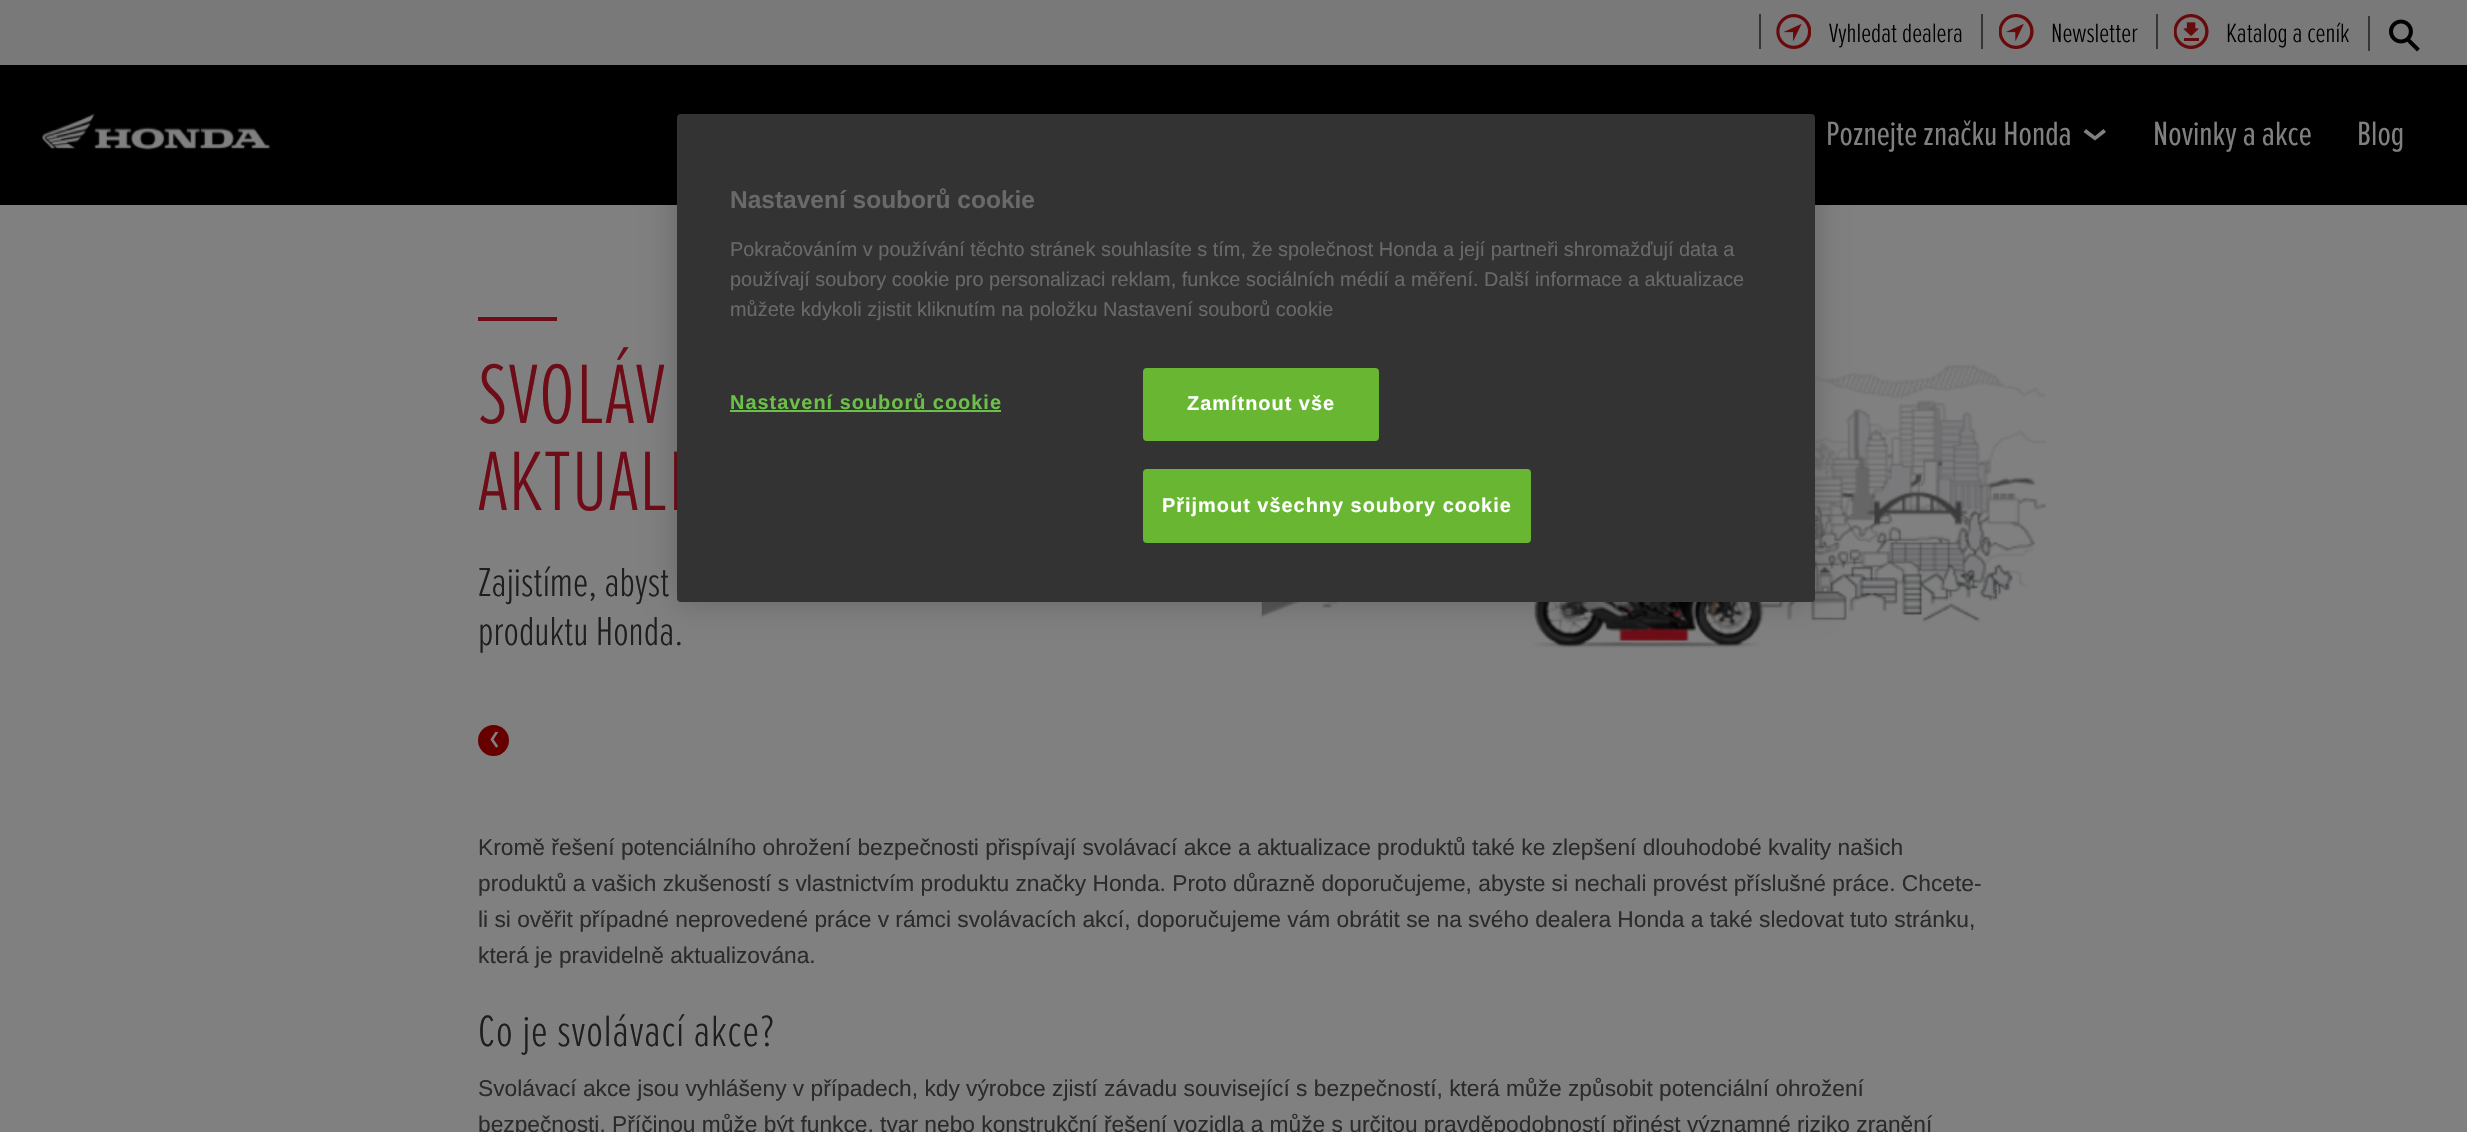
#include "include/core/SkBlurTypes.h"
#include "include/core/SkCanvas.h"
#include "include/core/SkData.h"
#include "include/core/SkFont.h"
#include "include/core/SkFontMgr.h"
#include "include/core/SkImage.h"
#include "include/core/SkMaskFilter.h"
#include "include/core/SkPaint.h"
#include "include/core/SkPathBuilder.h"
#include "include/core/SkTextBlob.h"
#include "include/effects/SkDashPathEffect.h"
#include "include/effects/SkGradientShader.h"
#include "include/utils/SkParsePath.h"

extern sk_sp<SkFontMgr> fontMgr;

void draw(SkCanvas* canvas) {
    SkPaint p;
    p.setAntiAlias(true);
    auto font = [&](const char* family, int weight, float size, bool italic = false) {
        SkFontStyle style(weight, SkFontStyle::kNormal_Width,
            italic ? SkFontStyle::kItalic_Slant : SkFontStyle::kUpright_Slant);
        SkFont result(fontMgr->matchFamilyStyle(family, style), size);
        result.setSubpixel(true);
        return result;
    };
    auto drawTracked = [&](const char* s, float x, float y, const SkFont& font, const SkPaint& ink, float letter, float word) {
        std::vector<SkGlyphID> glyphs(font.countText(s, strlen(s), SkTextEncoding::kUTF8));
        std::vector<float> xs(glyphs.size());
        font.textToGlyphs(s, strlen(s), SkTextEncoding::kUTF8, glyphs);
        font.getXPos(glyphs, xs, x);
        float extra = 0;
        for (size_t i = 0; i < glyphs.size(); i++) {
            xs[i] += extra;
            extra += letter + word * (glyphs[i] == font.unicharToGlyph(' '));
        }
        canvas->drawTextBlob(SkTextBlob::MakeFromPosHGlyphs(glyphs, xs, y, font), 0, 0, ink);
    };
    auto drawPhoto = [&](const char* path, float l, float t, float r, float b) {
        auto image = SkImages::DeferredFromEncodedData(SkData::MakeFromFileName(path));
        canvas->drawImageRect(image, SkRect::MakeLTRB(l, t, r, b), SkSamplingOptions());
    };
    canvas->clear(0xFF808080);
    p.setColor(0xFF797979);
    canvas->drawRect(SkRect::MakeLTRB(0, 0, 2467, 65), p);
    p.setColor(0xFF353535);
    canvas->drawRect(SkRect::MakeLTRB(1759, 14, 1761, 49), p);
    drawPhoto("media/1.png", 1776, 14, 1811, 49);
    auto font1 = font("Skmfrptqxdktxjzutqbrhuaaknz", 300, 27.5f);
    p.setColor(0xFF000000);
    canvas->drawString("Vyhledat dealera", 1829, 42, font1, p);
    p.setColor(0xFF353535);
    canvas->drawRect(SkRect::MakeLTRB(1981, 14, 1983, 49), p);
    drawPhoto("media/2.png", 1999, 14, 2034, 49);
    p.setColor(0xFF000000);
    canvas->drawString("Newsletter", 2051, 42, font1, p);
    p.setColor(0xFF353535);
    canvas->drawRect(SkRect::MakeLTRB(2156, 14, 2158, 49), p);
    drawPhoto("media/3.png", 2174, 14, 2209, 49);
    p.setColor(0xFF000000);
    canvas->drawString("Katalog a ceník", 2226, 42, font1, p);
    canvas->drawRect(SkRect::MakeLTRB(0, 65, 2467, 205), p);
    p.setColor(0xFF353535);
    canvas->drawRect(SkRect::MakeLTRB(2368, 16, 2370, 51), p);
    drawPhoto("media/4.png", 2389, 19, 2420, 52);
    drawPhoto("media/5.png", 42, 113, 270, 150);
    auto font2 = font("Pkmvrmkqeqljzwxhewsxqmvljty", 400, 35);
    p.setColor(0xFF808080);
    canvas->drawString("Poznejte značku Honda", 1826, 145, font2, p);
    canvas->drawPath(SkPathBuilder().moveTo(2095, 140.5f).lineTo(2083.5f, 132).lineTo(2086, 129).lineTo(2095, 136).lineTo(2103.5f, 129).lineTo(2106, 132).close().detach(), p);
    canvas->drawString("Novinky a akce", 2153, 145, font2, p);
    canvas->drawString("Blog", 2357, 145, font2, p);
    p.setColor(0xFF6E0C17);
    canvas->drawRect(SkRect::MakeLTRB(478, 317, 557, 321), p);
    auto font3 = font("Skmfrptqxdktxjzutqbrhuaaknz", 300, 87.5f);
    drawTracked("SVOLÁV", 478, 423, font3, p, 0.9f, 0);
    drawTracked("AKTUALI", 478, 510, font3, p, 0.9f, 0);
    auto font4 = font("Skmfrptqxdktxjzutqbrhuaaknz", 300, 42);
    p.setColor(0xFF1E1E1E);
    canvas->drawString("Zajistíme, abyst", 478, 596, font4, p);
    canvas->drawString("produktu Honda.", 478, 645, font4, p);
    drawPhoto("media/6.png", 1261, 363, 2046, 648);
    p.setColor(0xFF660000);
    canvas->drawCircle(493.5f, 740.5f, 15.5f, p);
    canvas->save();
    canvas->clipRect(SkRect::MakeLTRB(490, 732, 499, 749));
    p.setStyle(SkPaint::kStroke_Style);
    p.setStrokeWidth(2.6f);
    p.setStrokeCap(SkPaint::kSquare_Cap);
    p.setColor(0xFF808080);
    canvas->drawPath(SkPathBuilder().moveTo(496.5f, 746).lineTo(492, 739.5f).lineTo(496.5f, 732.5f).detach(), p);
    canvas->restore();
    auto font5 = font("Liberation Sans", 400, 22.75f);
    p.setStyle(SkPaint::kFill_Style);
    p.setColor(0xFF2B2B2B);
    {
        const struct { const char* s; float x, y; } items[] = {
            {"Kromě řešení potenciálního ohrožení bezpečnosti přispívají svolávací akce a aktualizace produktů také ke zlepšení dlouhodobé kvality našich", 478, 855},
            {"produktů a vašich zkušeností s vlastnictvím produktu značky Honda. Proto důrazně doporučujeme, abyste si nechali provést příslušné práce. Chcete-", 478, 891},
            {"li si ověřit případné neprovedené práce v rámci svolávacích akcí, doporučujeme vám obrátit se na svého dealera Honda a také sledovat tuto stránku,", 478, 927},
            {"která je pravidelně aktualizována.", 478, 963},
        };
        for (auto [s, x, y] : items) {
            canvas->drawString(s, x, y, font5, p);
        }
    }
    auto font6 = font("Skmfrptqxdktxjzutqbrhuaaknz", 300, 45.5f);
    p.setColor(0xFF1E1E1E);
    drawTracked("Co je svolávací akce?", 478, 1046, font6, p, 0.9f, 0);
    p.setColor(0xFF2B2B2B);
    canvas->drawString("Svolávací akce jsou vyhlášeny v případech, kdy výrobce zjistí závadu související s bezpečností, která může způsobit potenciální ohrožení", 478, 1096, font5, p);
    canvas->drawString("bezpečnosti. Příčinou může být funkce, tvar nebo konstrukční řešení vozidla a může s určitou pravděpodobností přinést významné riziko zranění", 478, 1132, font5, p);
    p.setColor(0x33000000);
    p.setMaskFilter(SkMaskFilter::MakeBlur(kNormal_SkBlurStyle, 16));
    canvas->drawRoundRect(SkRect::MakeLTRB(677, 114, 1815, 602), 4, 4, p);
    p.setMaskFilter(nullptr);
    p.setColor(0xFF333333);
    canvas->drawRoundRect(SkRect::MakeLTRB(677, 114, 1815, 602), 4, 4, p);
    auto font7 = font("Liberation Sans", 700, 24.5f);
    p.setColor(0xFF696969);
    canvas->drawString("Nastavení souborů cookie", 730, 208, font7, p);
    auto font8 = font("Liberation Sans", 400, 19.92f);
    {
        const struct { const char* s; float x, y; } items[] = {
            {"Pokračováním v používání těchto stránek souhlasíte s tím, že společnost Honda a její partneři shromažďují data a", 730, 256},
            {"používají soubory cookie pro personalizaci reklam, funkce sociálních médií a měření. Další informace a aktualizace", 730, 286},
            {"můžete kdykoli zjistit kliknutím na položku Nastavení souborů cookie", 730, 316},
        };
        for (auto [s, x, y] : items) {
            canvas->drawString(s, x, y, font8, p);
        }
    }
    auto font9 = font("Liberation Sans", 700, 19.92f);
    p.setColor(0xFF6CC04A);
    drawTracked("Nastavení souborů cookie", 730, 409, font9, p, 1, 0);
    canvas->drawRect(SkRect::MakeLTRB(730, 410, 1001, 412), p);
    p.setColor(0xFF68B631);
    canvas->drawRoundRect(SkRect::MakeLTRB(1144, 369, 1378, 440), 3, 3, p);
    p.setStyle(SkPaint::kStroke_Style);
    p.setStrokeWidth(2);
    p.setStrokeCap(SkPaint::kButt_Cap);
    canvas->drawRoundRect(SkRect::MakeLTRB(1144, 369, 1378, 440), 3, 3, p);
    p.setStyle(SkPaint::kFill_Style);
    p.setColor(0xFFFFFFFF);
    drawTracked("Zamítnout vše", 1187, 410, font9, p, 1, 0);
    p.setColor(0xFF68B631);
    canvas->drawRoundRect(SkRect::MakeLTRB(1144, 470, 1530, 542), 3, 3, p);
    p.setStyle(SkPaint::kStroke_Style);
    canvas->drawRoundRect(SkRect::MakeLTRB(1144, 470, 1530, 542), 3, 3, p);
    p.setStyle(SkPaint::kFill_Style);
    p.setColor(0xFFFFFFFF);
    drawTracked("Přijmout všechny soubory cookie", 1162, 512, font9, p, 1, 0);
}
